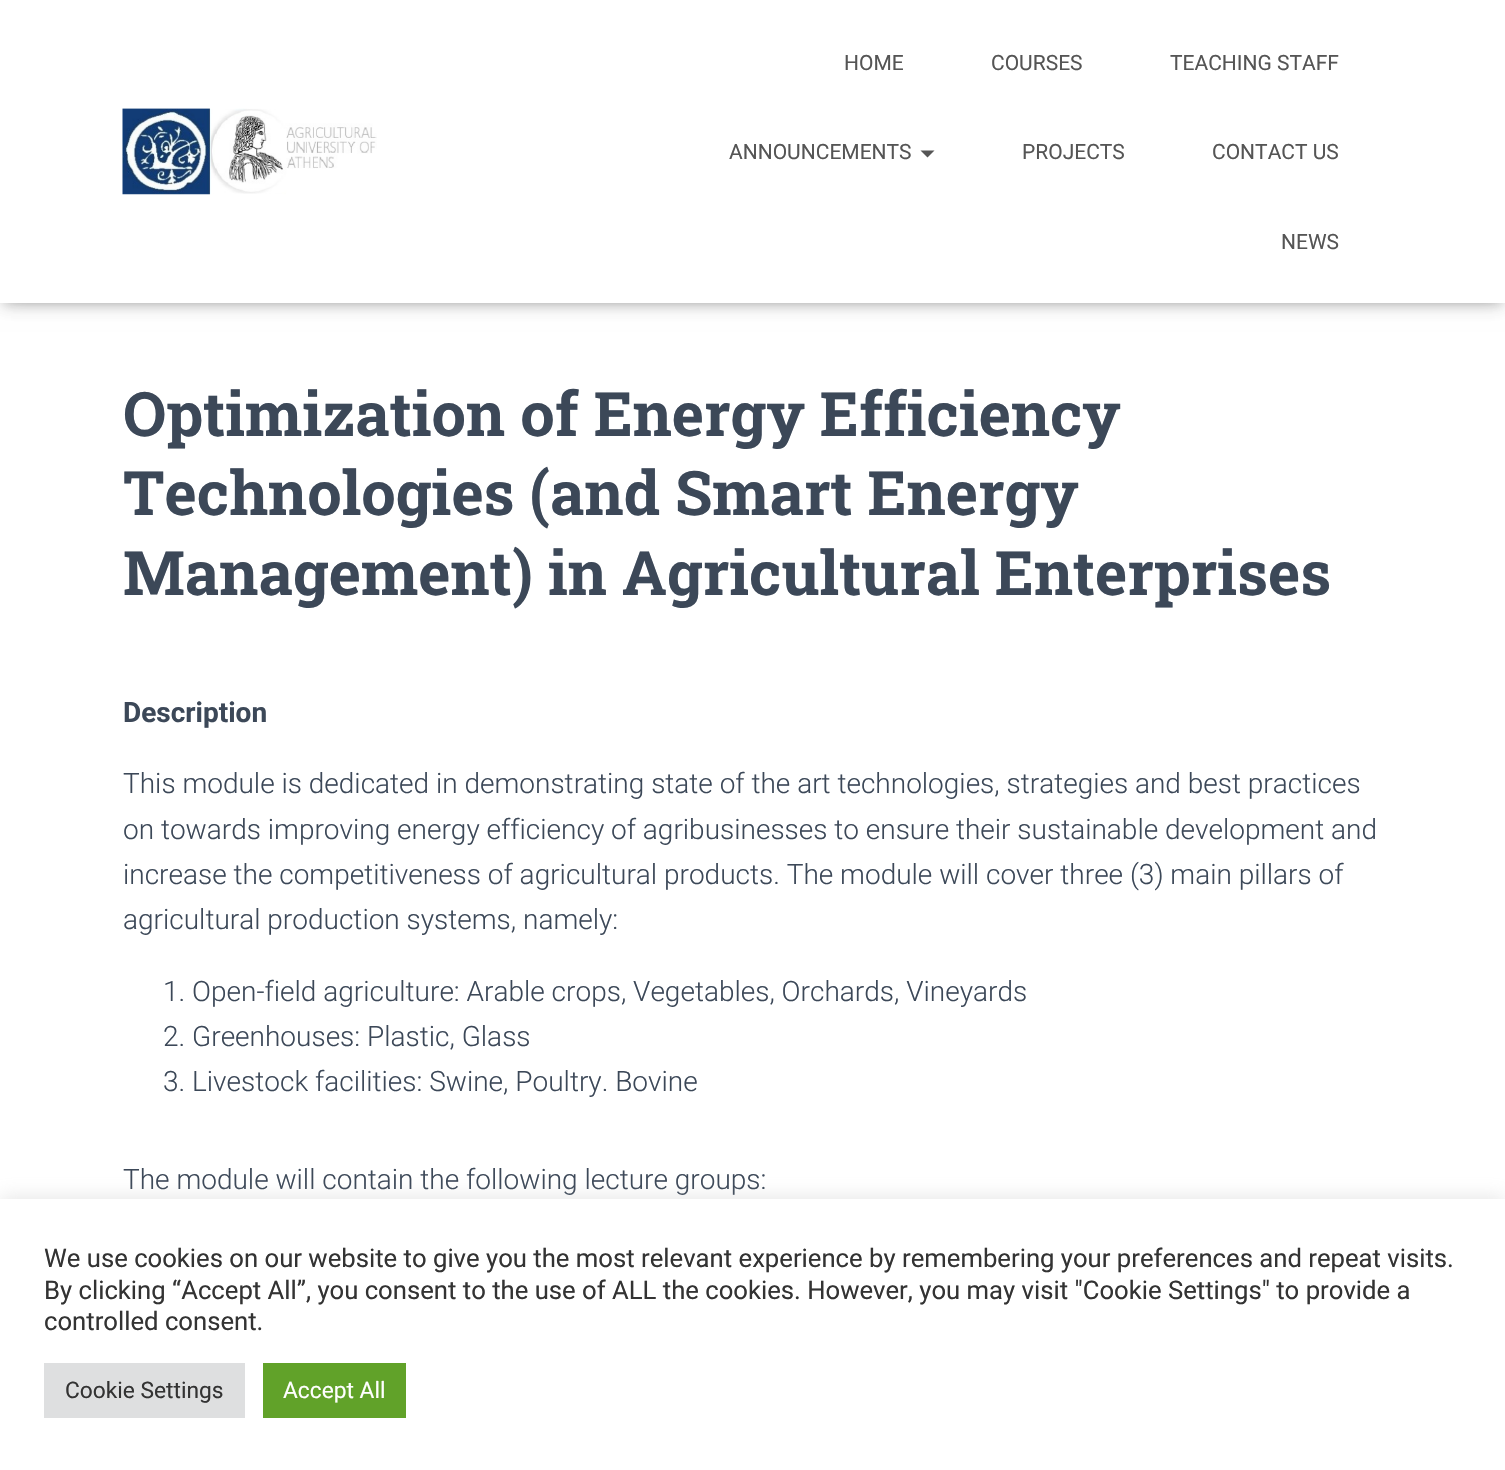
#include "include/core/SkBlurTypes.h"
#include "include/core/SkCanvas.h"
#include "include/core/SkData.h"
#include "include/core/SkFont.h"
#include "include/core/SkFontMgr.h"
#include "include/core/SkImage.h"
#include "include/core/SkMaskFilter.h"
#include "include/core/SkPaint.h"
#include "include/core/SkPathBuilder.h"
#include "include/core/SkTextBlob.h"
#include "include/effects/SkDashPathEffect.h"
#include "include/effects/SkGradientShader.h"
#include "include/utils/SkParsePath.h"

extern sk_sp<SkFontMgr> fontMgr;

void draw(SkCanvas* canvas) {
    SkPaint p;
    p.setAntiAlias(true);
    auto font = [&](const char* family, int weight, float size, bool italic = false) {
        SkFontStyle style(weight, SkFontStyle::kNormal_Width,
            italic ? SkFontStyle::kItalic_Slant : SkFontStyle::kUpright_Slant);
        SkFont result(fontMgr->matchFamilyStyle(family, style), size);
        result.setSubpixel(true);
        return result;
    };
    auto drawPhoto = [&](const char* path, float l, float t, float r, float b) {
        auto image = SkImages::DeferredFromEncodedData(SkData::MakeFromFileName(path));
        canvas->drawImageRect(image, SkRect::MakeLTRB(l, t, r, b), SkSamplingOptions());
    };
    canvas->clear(0xFFFFFFFF);
    p.setColor(0x1A000000);
    p.setMaskFilter(SkMaskFilter::MakeBlur(kNormal_SkBlurStyle, 4.5f));
    canvas->drawRect(SkRect::MakeLTRB(4, 11, 1502, 306), p);
    p.setMaskFilter(nullptr);
    p.setColor(0x1F000000);
    p.setMaskFilter(SkMaskFilter::MakeBlur(kNormal_SkBlurStyle, 9));
    canvas->drawRect(SkRect::MakeLTRB(0, 2, 1505, 305), p);
    p.setMaskFilter(nullptr);
    p.setColor(0x6B000000);
    p.setMaskFilter(SkMaskFilter::MakeBlur(kNormal_SkBlurStyle, 9));
    canvas->drawRect(SkRect::MakeLTRB(11, 12, 1495, 294), p);
    p.setMaskFilter(nullptr);
    p.setColor(0xFFFFFFFF);
    canvas->drawRect(SkRect::MakeLTRB(0, 0, 1505, 303), p);
    drawPhoto("media/1.png", 122, 108, 377, 195);
    auto font1 = font("Roboto", 400, 21);
    p.setColor(0xFF555555);
    {
        const struct { const char* s; float x, y; } items[] = {
            {"HOME", 844, 70},
            {"COURSES", 991, 70},
            {"TEACHING STAFF", 1170, 70},
            {"ANNOUNCEMENTS", 729, 159},
        };
        for (auto [s, x, y] : items) {
            canvas->drawString(s, x, y, font1, p);
        }
    }
    canvas->drawPath(SkPathBuilder().moveTo(920.5f, 150.5f).lineTo(934.5f, 150.5f).lineTo(927.5f, 157.5f).close().detach(), p);
    {
        const struct { const char* s; float x, y; } items[] = {
            {"PROJECTS", 1022, 159},
            {"CONTACT US", 1212, 159},
            {"NEWS", 1281, 249},
        };
        for (auto [s, x, y] : items) {
            canvas->drawString(s, x, y, font1, p);
        }
    }
    auto font2 = font("Roboto Slab", 700, 61.25f);
    p.setColor(0xFF3C4858);
    {
        const struct { const char* s; float x, y; } items[] = {
            {"Optimization of Energy Efficiency", 123, 436},
            {"Technologies (and Smart Energy", 123, 515},
            {"Management) in Agricultural Enterprises", 123, 595},
        };
        for (auto [s, x, y] : items) {
            canvas->drawString(s, x, y, font2, p);
        }
    }
    auto font3 = font("Roboto", 700, 28);
    canvas->drawString("Description", 123, 722, font3, p);
    auto font4 = font("Roboto", 300, 28);
    {
        const struct { const char* s; float x, y; } items[] = {
            {"This module is dedicated in demonstrating state of the art technologies, strategies and best practices", 123, 793},
            {"on towards improving energy efficiency of agribusinesses to ensure their sustainable development and", 123, 839},
            {"increase the competitiveness of agricultural products. The module will cover three (3) main pillars of", 123, 884},
            {"agricultural production systems, namely:", 123, 929},
            {"1. Open-field agriculture: Arable crops, Vegetables, Orchards, Vineyards", 163, 1001},
            {"2. Greenhouses: Plastic, Glass", 163, 1046},
            {"3. Livestock facilities: Swine, Poultry. Bovine", 163, 1091},
            {"The module will contain the following lecture groups:", 123, 1189},
        };
        for (auto [s, x, y] : items) {
            canvas->drawString(s, x, y, font4, p);
        }
    }
    p.setColor(0x4DACABAB);
    p.setMaskFilter(SkMaskFilter::MakeBlur(kNormal_SkBlurStyle, 9));
    canvas->drawRect(SkRect::MakeLTRB(0, 1197, 1505, 1468), p);
    p.setMaskFilter(nullptr);
    p.setColor(0xFFFFFFFF);
    canvas->drawRect(SkRect::MakeLTRB(0, 1199, 1505, 1470), p);
    auto font5 = font("Roboto", 400, 25.67f);
    p.setColor(0xFF333333);
    {
        const struct { const char* s; float x, y; } items[] = {
            {"We use cookies on our website to give you the most relevant experience by remembering your preferences and repeat visits.", 44, 1267},
            {"By clicking “Accept All”, you consent to the use of ALL the cookies. However, you may visit \"Cookie Settings\" to provide a", 44, 1299},
            {"controlled consent.", 44, 1330},
        };
        for (auto [s, x, y] : items) {
            canvas->drawString(s, x, y, font5, p);
        }
    }
    p.setColor(0xFFDEDFE0);
    canvas->drawRect(SkRect::MakeLTRB(44, 1363, 245, 1418), p);
    auto font6 = font("Roboto", 400, 22.75f);
    p.setColor(0xFF333333);
    canvas->drawString("Cookie Settings", 65, 1398, font6, p);
    p.setColor(0xFF61A229);
    canvas->drawRect(SkRect::MakeLTRB(263, 1363, 406, 1418), p);
    p.setColor(0xFFFFFFFF);
    canvas->drawString("Accept All", 283, 1398, font6, p);
}
